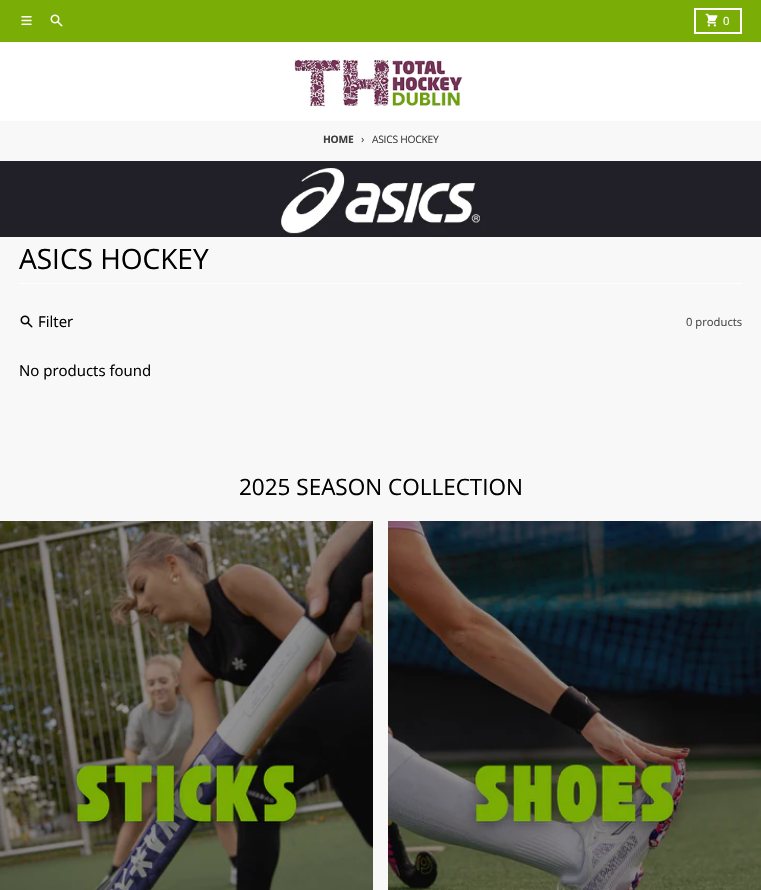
#include "include/core/SkBlurTypes.h"
#include "include/core/SkCanvas.h"
#include "include/core/SkData.h"
#include "include/core/SkFont.h"
#include "include/core/SkFontMgr.h"
#include "include/core/SkImage.h"
#include "include/core/SkMaskFilter.h"
#include "include/core/SkPaint.h"
#include "include/core/SkPathBuilder.h"
#include "include/core/SkTextBlob.h"
#include "include/effects/SkDashPathEffect.h"
#include "include/effects/SkGradientShader.h"
#include "include/utils/SkParsePath.h"

extern sk_sp<SkFontMgr> fontMgr;

void draw(SkCanvas* canvas) {
    SkPaint p;
    p.setAntiAlias(true);
    auto font = [&](const char* family, int weight, float size, bool italic = false) {
        SkFontStyle style(weight, SkFontStyle::kNormal_Width,
            italic ? SkFontStyle::kItalic_Slant : SkFontStyle::kUpright_Slant);
        SkFont result(fontMgr->matchFamilyStyle(family, style), size);
        result.setSubpixel(true);
        return result;
    };
    auto drawTracked = [&](const char* s, float x, float y, const SkFont& font, const SkPaint& ink, float letter, float word) {
        std::vector<SkGlyphID> glyphs(font.countText(s, strlen(s), SkTextEncoding::kUTF8));
        std::vector<float> xs(glyphs.size());
        font.textToGlyphs(s, strlen(s), SkTextEncoding::kUTF8, glyphs);
        font.getXPos(glyphs, xs, x);
        float extra = 0;
        for (size_t i = 0; i < glyphs.size(); i++) {
            xs[i] += extra;
            extra += letter + word * (glyphs[i] == font.unicharToGlyph(' '));
        }
        canvas->drawTextBlob(SkTextBlob::MakeFromPosHGlyphs(glyphs, xs, y, font), 0, 0, ink);
    };
    auto drawPhoto = [&](const char* path, float l, float t, float r, float b) {
        auto image = SkImages::DeferredFromEncodedData(SkData::MakeFromFileName(path));
        canvas->drawImageRect(image, SkRect::MakeLTRB(l, t, r, b), SkSamplingOptions());
    };
    canvas->clear(0xFFFFFFFF);
    p.setColor(0xFF7AAD05);
    canvas->drawRect(SkRect::MakeLTRB(0, 0, 761, 42), p);
    drawPhoto("media/1.png", 21, 16, 32, 25);
    drawPhoto("media/2.png", 50, 14, 63, 27);
    p.setStyle(SkPaint::kStroke_Style);
    p.setStrokeWidth(2);
    p.setColor(0xFFFFFFFF);
    canvas->drawRect(SkRect::MakeLTRB(695, 9, 741, 33), p);
    drawPhoto("media/3.png", 705, 13, 718, 27);
    auto font1 = font("Open Sans", 400, 11.25f);
    p.setStyle(SkPaint::kFill_Style);
    canvas->drawString("0", 723, 25, font1, p);
    drawPhoto("media/4.png", 291, 58, 463, 110);
    p.setColor(0xFFF8F8F8);
    canvas->drawRect(SkRect::MakeLTRB(0, 121, 761, 890), p);
    auto font2 = font("Open Sans", 700, 10.25f);
    p.setColor(0xFF3E3E3E);
    drawTracked("HOME", 323, 143, font2, p, -0.25f, 0);
    drawTracked("›", 361, 143, font1, p, -0.25f, 0);
    auto font3 = font("Open Sans", 400, 10.25f);
    drawTracked("ASICS HOCKEY", 372, 143, font3, p, -0.25f, 0);
    drawPhoto("media/5.png", 0, 161, 761, 237);
    p.setColor(0xFFFFFFFF);
    canvas->drawRect(SkRect::MakeLTRB(19, 283, 742, 284), p);
    auto font4 = font("Open Sans", 400, 28);
    p.setColor(0xFF000000);
    canvas->drawString("ASICS HOCKEY", 19, 269, font4, p);
    drawPhoto("media/6.png", 20, 315, 33, 328);
    auto font5 = font("Open Sans", 400, 15);
    canvas->drawString("Filter", 38, 327, font5, p);
    p.setColor(0xFF4A4A4A);
    canvas->drawString("0 products", 686, 326, font1, p);
    p.setColor(0xFF000000);
    canvas->drawString("No products found", 19, 376, font5, p);
    auto font6 = font("Open Sans", 400, 22.5f);
    canvas->drawString("2025 SEASON COLLECTION", 239, 495, font6, p);
    drawPhoto("media/7.png", 0, 521, 373, 890);
    drawPhoto("media/8.png", 388, 521, 761, 890);
}
